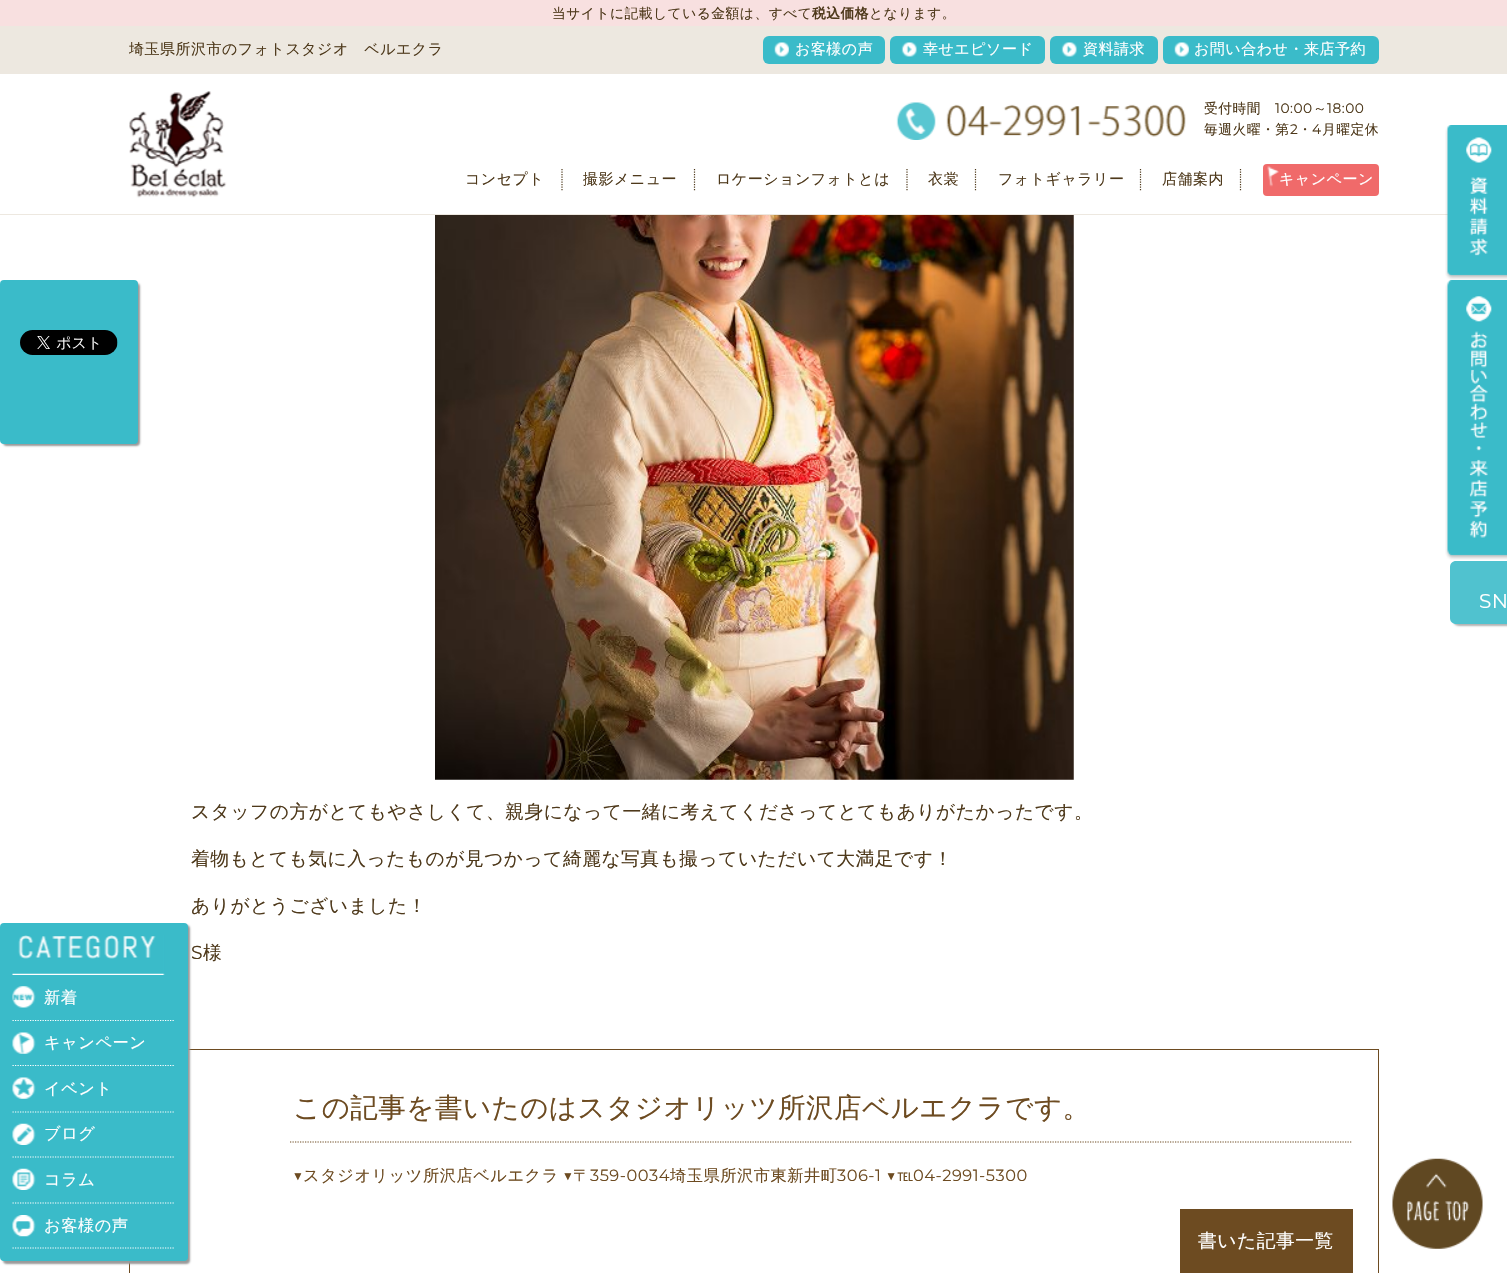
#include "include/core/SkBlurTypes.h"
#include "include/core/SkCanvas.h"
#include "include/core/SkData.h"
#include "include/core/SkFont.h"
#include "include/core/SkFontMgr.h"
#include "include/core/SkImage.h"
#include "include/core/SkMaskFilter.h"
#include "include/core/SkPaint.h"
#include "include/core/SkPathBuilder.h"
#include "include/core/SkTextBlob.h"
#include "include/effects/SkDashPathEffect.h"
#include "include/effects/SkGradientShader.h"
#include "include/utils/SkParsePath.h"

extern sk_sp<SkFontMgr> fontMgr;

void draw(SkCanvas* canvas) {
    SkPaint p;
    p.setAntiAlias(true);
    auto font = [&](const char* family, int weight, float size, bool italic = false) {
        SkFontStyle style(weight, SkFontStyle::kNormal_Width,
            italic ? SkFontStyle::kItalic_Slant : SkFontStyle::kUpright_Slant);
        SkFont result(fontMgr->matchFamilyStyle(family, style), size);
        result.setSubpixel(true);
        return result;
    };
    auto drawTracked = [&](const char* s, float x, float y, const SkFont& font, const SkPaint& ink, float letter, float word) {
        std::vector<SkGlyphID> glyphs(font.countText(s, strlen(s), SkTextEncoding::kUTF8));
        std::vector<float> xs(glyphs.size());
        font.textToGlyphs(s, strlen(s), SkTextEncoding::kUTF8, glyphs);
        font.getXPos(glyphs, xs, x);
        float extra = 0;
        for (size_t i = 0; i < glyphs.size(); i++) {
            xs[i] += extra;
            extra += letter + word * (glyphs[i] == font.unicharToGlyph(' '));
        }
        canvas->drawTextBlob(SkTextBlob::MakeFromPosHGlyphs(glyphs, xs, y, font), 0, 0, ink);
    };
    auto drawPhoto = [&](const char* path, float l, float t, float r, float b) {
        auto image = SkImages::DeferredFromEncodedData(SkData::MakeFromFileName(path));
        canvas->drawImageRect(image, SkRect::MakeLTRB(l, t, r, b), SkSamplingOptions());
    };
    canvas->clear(0xFFFFFFFF);
    p.setColor(0xFFEDE8E0);
    canvas->drawRect(SkRect::MakeLTRB(0, 214, 1448, 215), p);
    p.setColor(0xFFF8E0E0);
    canvas->drawRect(SkRect::MakeLTRB(0, 0, 1507, 26), p);
    auto font1 = font("WenQuanYi Zen Hei", 500, 13.75f);
    p.setColor(0xFF4E391B);
    drawTracked("当サイトに記載している金額は、すべて", 552, 18, font1, p, 0.5f, 0);
    auto font2 = font("WenQuanYi Zen Hei", 700, 13.75f);
    drawTracked("税込価格", 812, 18, font2, p, 0.5f, 0);
    drawTracked("となります。", 869, 18, font1, p, 0.5f, 0);
    p.setColor(0xFFEDE8E0);
    canvas->drawRect(SkRect::MakeLTRB(0, 26, 1507, 74), p);
    auto font3 = font("WenQuanYi Zen Hei", 500, 15);
    p.setColor(0xFF4E391B);
    drawTracked("埼玉県所沢市のフォトスタジオ　ベルエクラ", 129, 54, font3, p, 0.5f, 0);
    p.setColor(0xFF3ABBC9);
    canvas->drawRoundRect(SkRect::MakeLTRB(763, 36, 885, 64), 6, 6, p);
    drawPhoto("media/1.png", 774, 42, 789, 57);
    p.setColor(0xFFFFFFFF);
    drawTracked("お客様の声", 795, 54, font3, p, 0.5f, 0);
    p.setColor(0xFF3ABBC9);
    canvas->drawRoundRect(SkRect::MakeLTRB(890, 36, 1045, 64), 6, 6, p);
    drawPhoto("media/2.png", 901, 42, 917, 57);
    p.setColor(0xFFFFFFFF);
    drawTracked("幸せエピソード", 923, 54, font3, p, 0.5f, 0);
    p.setColor(0xFF3ABBC9);
    canvas->drawRoundRect(SkRect::MakeLTRB(1050, 36, 1158, 64), 6, 6, p);
    drawPhoto("media/3.png", 1061, 42, 1077, 57);
    p.setColor(0xFFFFFFFF);
    drawTracked("資料請求", 1083, 54, font3, p, 0.5f, 0);
    p.setColor(0xFF3ABBC9);
    canvas->drawRoundRect(SkRect::MakeLTRB(1163, 36, 1379, 64), 6, 6, p);
    drawPhoto("media/4.png", 1174, 42, 1189, 57);
    p.setColor(0xFFFFFFFF);
    drawTracked("お問い合わせ・来店予約", 1194, 54, font3, p, 0.5f, 0);
    drawPhoto("media/5.png", 129, 91, 227, 198);
    drawPhoto("media/6.png", 896, 102, 1186, 140);
    p.setColor(0xFF4E391B);
    drawTracked("受付時間", 1204, 113, font1, p, 0.5f, 0);
    auto font4 = font("Montserrat", 400, 13.75f);
    drawTracked("10:00", 1275, 113, font4, p, 0.5f, 0);
    drawTracked("～", 1313, 113, font1, p, 0.5f, 0);
    drawTracked("18:00", 1327, 113, font4, p, 0.5f, 0);
    drawTracked("毎週火曜・第", 1204, 134, font1, p, 0.5f, 0);
    drawTracked("2", 1290, 134, font4, p, 0.5f, 0);
    drawTracked("・", 1298, 134, font1, p, 0.5f, 0);
    drawTracked("4", 1312, 134, font4, p, 0.5f, 0);
    drawTracked("月曜定休", 1322, 134, font1, p, 0.5f, 0);
    p.setStyle(SkPaint::kStroke_Style);
    p.setStrokeWidth(1.2f);
    p.setColor(0xFF4F3A1C);
    p.setPathEffect(SkDashPathEffect::Make({{1.25f, 1.25f}}, 0));
    canvas->drawPath(SkPathBuilder().moveTo(562, 169).lineTo(562, 191).detach(), p);
    p.setPathEffect(nullptr);
    p.setStyle(SkPaint::kFill_Style);
    p.setColor(0xFF4E391B);
    drawTracked("コンセプト", 465, 184, font3, p, 0.5f, 0);
    p.setStyle(SkPaint::kStroke_Style);
    p.setColor(0xFF4F3A1C);
    p.setPathEffect(SkDashPathEffect::Make({{1.25f, 1.25f}}, 0));
    canvas->drawPath(SkPathBuilder().moveTo(694.5f, 169).lineTo(694.5f, 191).detach(), p);
    p.setPathEffect(nullptr);
    p.setStyle(SkPaint::kFill_Style);
    p.setColor(0xFF4E391B);
    drawTracked("撮影メニュー", 583, 184, font3, p, 0.5f, 0);
    p.setStyle(SkPaint::kStroke_Style);
    p.setColor(0xFF4F3A1C);
    p.setPathEffect(SkDashPathEffect::Make({{1.25f, 1.25f}}, 0));
    canvas->drawPath(SkPathBuilder().moveTo(907, 169).lineTo(907, 191).detach(), p);
    p.setPathEffect(nullptr);
    p.setStyle(SkPaint::kFill_Style);
    p.setColor(0xFF4E391B);
    drawTracked("ロケーションフォトとは", 716, 184, font3, p, 0.5f, 0);
    p.setStyle(SkPaint::kStroke_Style);
    p.setColor(0xFF4F3A1C);
    p.setPathEffect(SkDashPathEffect::Make({{1.25f, 1.25f}}, 0));
    canvas->drawPath(SkPathBuilder().moveTo(975.5f, 169).lineTo(975.5f, 191).detach(), p);
    p.setPathEffect(nullptr);
    p.setStyle(SkPaint::kFill_Style);
    p.setColor(0xFF4E391B);
    drawTracked("衣裳", 928, 184, font3, p, 0.5f, 0);
    p.setStyle(SkPaint::kStroke_Style);
    p.setColor(0xFF4F3A1C);
    p.setPathEffect(SkDashPathEffect::Make({{1.25f, 1.25f}}, 0));
    canvas->drawPath(SkPathBuilder().moveTo(1140.5f, 169).lineTo(1140.5f, 191).detach(), p);
    p.setPathEffect(nullptr);
    p.setStyle(SkPaint::kFill_Style);
    p.setColor(0xFF4E391B);
    drawTracked("フォトギャラリー", 998, 184, font3, p, 0.5f, 0);
    p.setStyle(SkPaint::kStroke_Style);
    p.setColor(0xFF4F3A1C);
    p.setPathEffect(SkDashPathEffect::Make({{1.25f, 1.25f}}, 0));
    canvas->drawPath(SkPathBuilder().moveTo(1240.5f, 169).lineTo(1240.5f, 191).detach(), p);
    p.setPathEffect(nullptr);
    p.setStyle(SkPaint::kFill_Style);
    p.setColor(0xFF4E391B);
    drawTracked("店舗案内", 1162, 184, font3, p, 0.5f, 0);
    p.setColor(0xFFF06A6A);
    canvas->drawRoundRect(SkRect::MakeLTRB(1263, 164, 1379, 196), 4, 4, p);
    drawPhoto("media/7.png", 1267, 166, 1279, 187);
    p.setColor(0xFFFFFFFF);
    drawTracked("キャンペーン", 1279, 184, font3, p, 0.5f, 0);
    drawPhoto("media/8.png", 1445, 125, 1507, 280);
    drawPhoto("media/9.png", 1445, 280, 1507, 560);
    canvas->save();
    canvas->clipPath(SkPathBuilder(SkPathFillType::kEvenOdd).moveTo(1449, 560).lineTo(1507, 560).lineTo(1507, 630).lineTo(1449, 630).close().moveTo(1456, 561).lineTo(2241, 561).lineTo(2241, 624).lineTo(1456, 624).cubicTo(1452.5f, 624, 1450, 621.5f, 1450, 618).lineTo(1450, 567).cubicTo(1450, 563.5f, 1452.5f, 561, 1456, 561).close().detach(), true);
    p.setColor(0x4D000000);
    p.setMaskFilter(SkMaskFilter::MakeBlur(kNormal_SkBlurStyle, 1));
    canvas->drawRoundRect(SkRect::MakeLTRB(1453, 564, 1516, 626), 6, 6, p);
    p.setMaskFilter(nullptr);
    canvas->restore();
    p.setColor(0xE33ABBC9);
    canvas->drawPath(SkPathBuilder().moveTo(1456, 561).lineTo(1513, 561).lineTo(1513, 624).lineTo(1456, 624).cubicTo(1452.5f, 624, 1450, 621.5f, 1450, 618).lineTo(1450, 567).cubicTo(1450, 563.5f, 1452.5f, 561, 1456, 561).close().detach(), p);
    auto font5 = font("Montserrat", 400, 20);
    p.setColor(0xFFFFFFFF);
    drawTracked("SN", 1479, 608, font5, p, 0.5f, 0);
    p.setColor(0xFF999999);
    p.setMaskFilter(SkMaskFilter::MakeBlur(kNormal_SkBlurStyle, 1));
    canvas->drawRoundRect(SkRect::MakeLTRB(3, 283, 140, 446), 4, 4, p);
    p.setMaskFilter(nullptr);
    p.setColor(0xFF3ABBC9);
    canvas->drawRoundRect(SkRect::MakeLTRB(0, 280, 138, 444), 4, 4, p);
    drawPhoto("media/10.png", 20, 330, 118, 355);
    drawPhoto("media/11.png", 435, 215, 1074, 780);
    auto font6 = font("WenQuanYi Zen Hei", 500, 18.75f);
    p.setColor(0xFF4E391B);
    {
        const struct { const char* s; float x, y; } items[] = {
            {"スタッフの方がとてもやさしくて、親身になって一緒に考えてくださってとてもありがたかったです。", 191, 818},
            {"着物もとても気に入ったものが見つかって綺麗な写真も撮っていただいて大満足です！", 191, 865},
            {"ありがとうございました！", 191, 912},
        };
        for (auto [s, x, y] : items) {
            drawTracked(s, x, y, font6, p, 0.5f, 0);
        }
    }
    auto font7 = font("Montserrat", 400, 18.75f);
    drawTracked("S", 191, 959, font7, p, 0.5f, 0);
    drawTracked("様", 203, 959, font6, p, 0.5f, 0);
    p.setStyle(SkPaint::kStroke_Style);
    p.setStrokeWidth(1);
    p.setColor(0xFF6D4B21);
    canvas->drawRect(SkRect::MakeLTRB(129.5f, 1049.5f, 1378.5f, 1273.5f), p);
    p.setStyle(SkPaint::kFill_Style);
    p.setColor(0xFF999999);
    p.setMaskFilter(SkMaskFilter::MakeBlur(kNormal_SkBlurStyle, 1));
    canvas->drawRoundRect(SkRect::MakeLTRB(3, 925, 190, 1264), 4, 4, p);
    p.setMaskFilter(nullptr);
    p.setColor(0xFF3ABBC9);
    canvas->drawRoundRect(SkRect::MakeLTRB(0, 923, 188, 1261), 4, 4, p);
    drawPhoto("media/12.png", 12, 935, 165, 975);
    drawPhoto("media/13.png", 12, 986, 36, 1008);
    p.setStyle(SkPaint::kStroke_Style);
    p.setStrokeWidth(1.2f);
    p.setColor(0xFFFFFFFF);
    p.setPathEffect(SkDashPathEffect::Make({{1.25f, 1.25f}}, 0));
    canvas->drawPath(SkPathBuilder().moveTo(12.5f, 1020.5f).lineTo(175, 1020.5f).detach(), p);
    p.setPathEffect(nullptr);
    auto font8 = font("WenQuanYi Zen Hei", 500, 16.25f);
    p.setStyle(SkPaint::kFill_Style);
    drawTracked("新着", 44, 1003, font8, p, 0.5f, 0);
    drawPhoto("media/14.png", 12, 1032, 36, 1054);
    p.setStyle(SkPaint::kStroke_Style);
    p.setPathEffect(SkDashPathEffect::Make({{1.25f, 1.25f}}, 0));
    canvas->drawPath(SkPathBuilder().moveTo(12.5f, 1065.5f).lineTo(175, 1065.5f).detach(), p);
    p.setPathEffect(nullptr);
    p.setStyle(SkPaint::kFill_Style);
    drawTracked("キャンペーン", 44, 1048, font8, p, 0.5f, 0);
    drawPhoto("media/15.png", 12, 1077, 36, 1099);
    p.setStyle(SkPaint::kStroke_Style);
    p.setPathEffect(SkDashPathEffect::Make({{1.25f, 1.25f}}, 0));
    canvas->drawPath(SkPathBuilder().moveTo(12.5f, 1112).lineTo(175, 1112).detach(), p);
    p.setPathEffect(nullptr);
    p.setStyle(SkPaint::kFill_Style);
    drawTracked("イベント", 44, 1094, font8, p, 0.5f, 0);
    drawPhoto("media/16.png", 12, 1123, 36, 1145);
    p.setStyle(SkPaint::kStroke_Style);
    p.setPathEffect(SkDashPathEffect::Make({{1.25f, 1.25f}}, 0));
    canvas->drawPath(SkPathBuilder().moveTo(12.5f, 1157).lineTo(175, 1157).detach(), p);
    p.setPathEffect(nullptr);
    p.setStyle(SkPaint::kFill_Style);
    drawTracked("ブログ", 44, 1139, font8, p, 0.5f, 0);
    drawPhoto("media/17.png", 12, 1168, 36, 1190);
    p.setStyle(SkPaint::kStroke_Style);
    p.setPathEffect(SkDashPathEffect::Make({{1.25f, 1.25f}}, 0));
    canvas->drawPath(SkPathBuilder().moveTo(12.5f, 1203).lineTo(175, 1203).detach(), p);
    p.setPathEffect(nullptr);
    p.setStyle(SkPaint::kFill_Style);
    drawTracked("コラム", 44, 1185, font8, p, 0.5f, 0);
    drawPhoto("media/18.png", 12, 1215, 36, 1237);
    p.setStyle(SkPaint::kStroke_Style);
    p.setPathEffect(SkDashPathEffect::Make({{1.25f, 1.25f}}, 0));
    canvas->drawPath(SkPathBuilder().moveTo(12.5f, 1248).lineTo(175, 1248).detach(), p);
    p.setPathEffect(nullptr);
    p.setStyle(SkPaint::kFill_Style);
    drawTracked("お客様の声", 44, 1231, font8, p, 0.5f, 0);
    p.setStyle(SkPaint::kStroke_Style);
    p.setColor(0xFF6D4B21);
    p.setPathEffect(SkDashPathEffect::Make({{1.25f, 1.25f}}, 0));
    canvas->drawPath(SkPathBuilder().moveTo(290, 1142).lineTo(1352.5f, 1142).detach(), p);
    p.setPathEffect(nullptr);
    auto font9 = font("WenQuanYi Zen Hei", 500, 27.5f);
    p.setStyle(SkPaint::kFill_Style);
    drawTracked("この記事を書いたのはスタジオリッツ所沢店ベルエクラです。", 293, 1117, font9, p, 0.5f, 0);
    auto font10 = font("Montserrat", 400, 16.25f);
    drawTracked("▼", 293, 1181, font10, p, 0.5f, 0);
    drawTracked("スタジオリッツ所沢店ベルエクラ", 303, 1181, font8, p, 0.5f, 0);
    drawTracked("▼", 563, 1181, font10, p, 0.5f, 0);
    drawTracked("〒", 573, 1181, font8, p, 0.5f, 0);
    drawTracked("359-0034", 590, 1181, font10, p, 0.5f, 0);
    drawTracked("埼玉県所沢市東新井町", 670, 1181, font8, p, 0.5f, 0);
    drawTracked("306-1 ▼", 837, 1181, font10, p, 0.5f, 0);
    drawTracked("℡", 897, 1181, font8, p, 0.5f, 0);
    drawTracked("04-2991-5300", 913, 1181, font10, p, 0.5f, 0);
    canvas->drawRect(SkRect::MakeLTRB(1180, 1209, 1353, 1273), p);
    p.setColor(0xFFFFFFFF);
    drawTracked("書いた記事一覧", 1198, 1247, font6, p, 0.5f, 0);
    drawPhoto("media/19.png", 1392, 1158, 1483, 1249);
}
